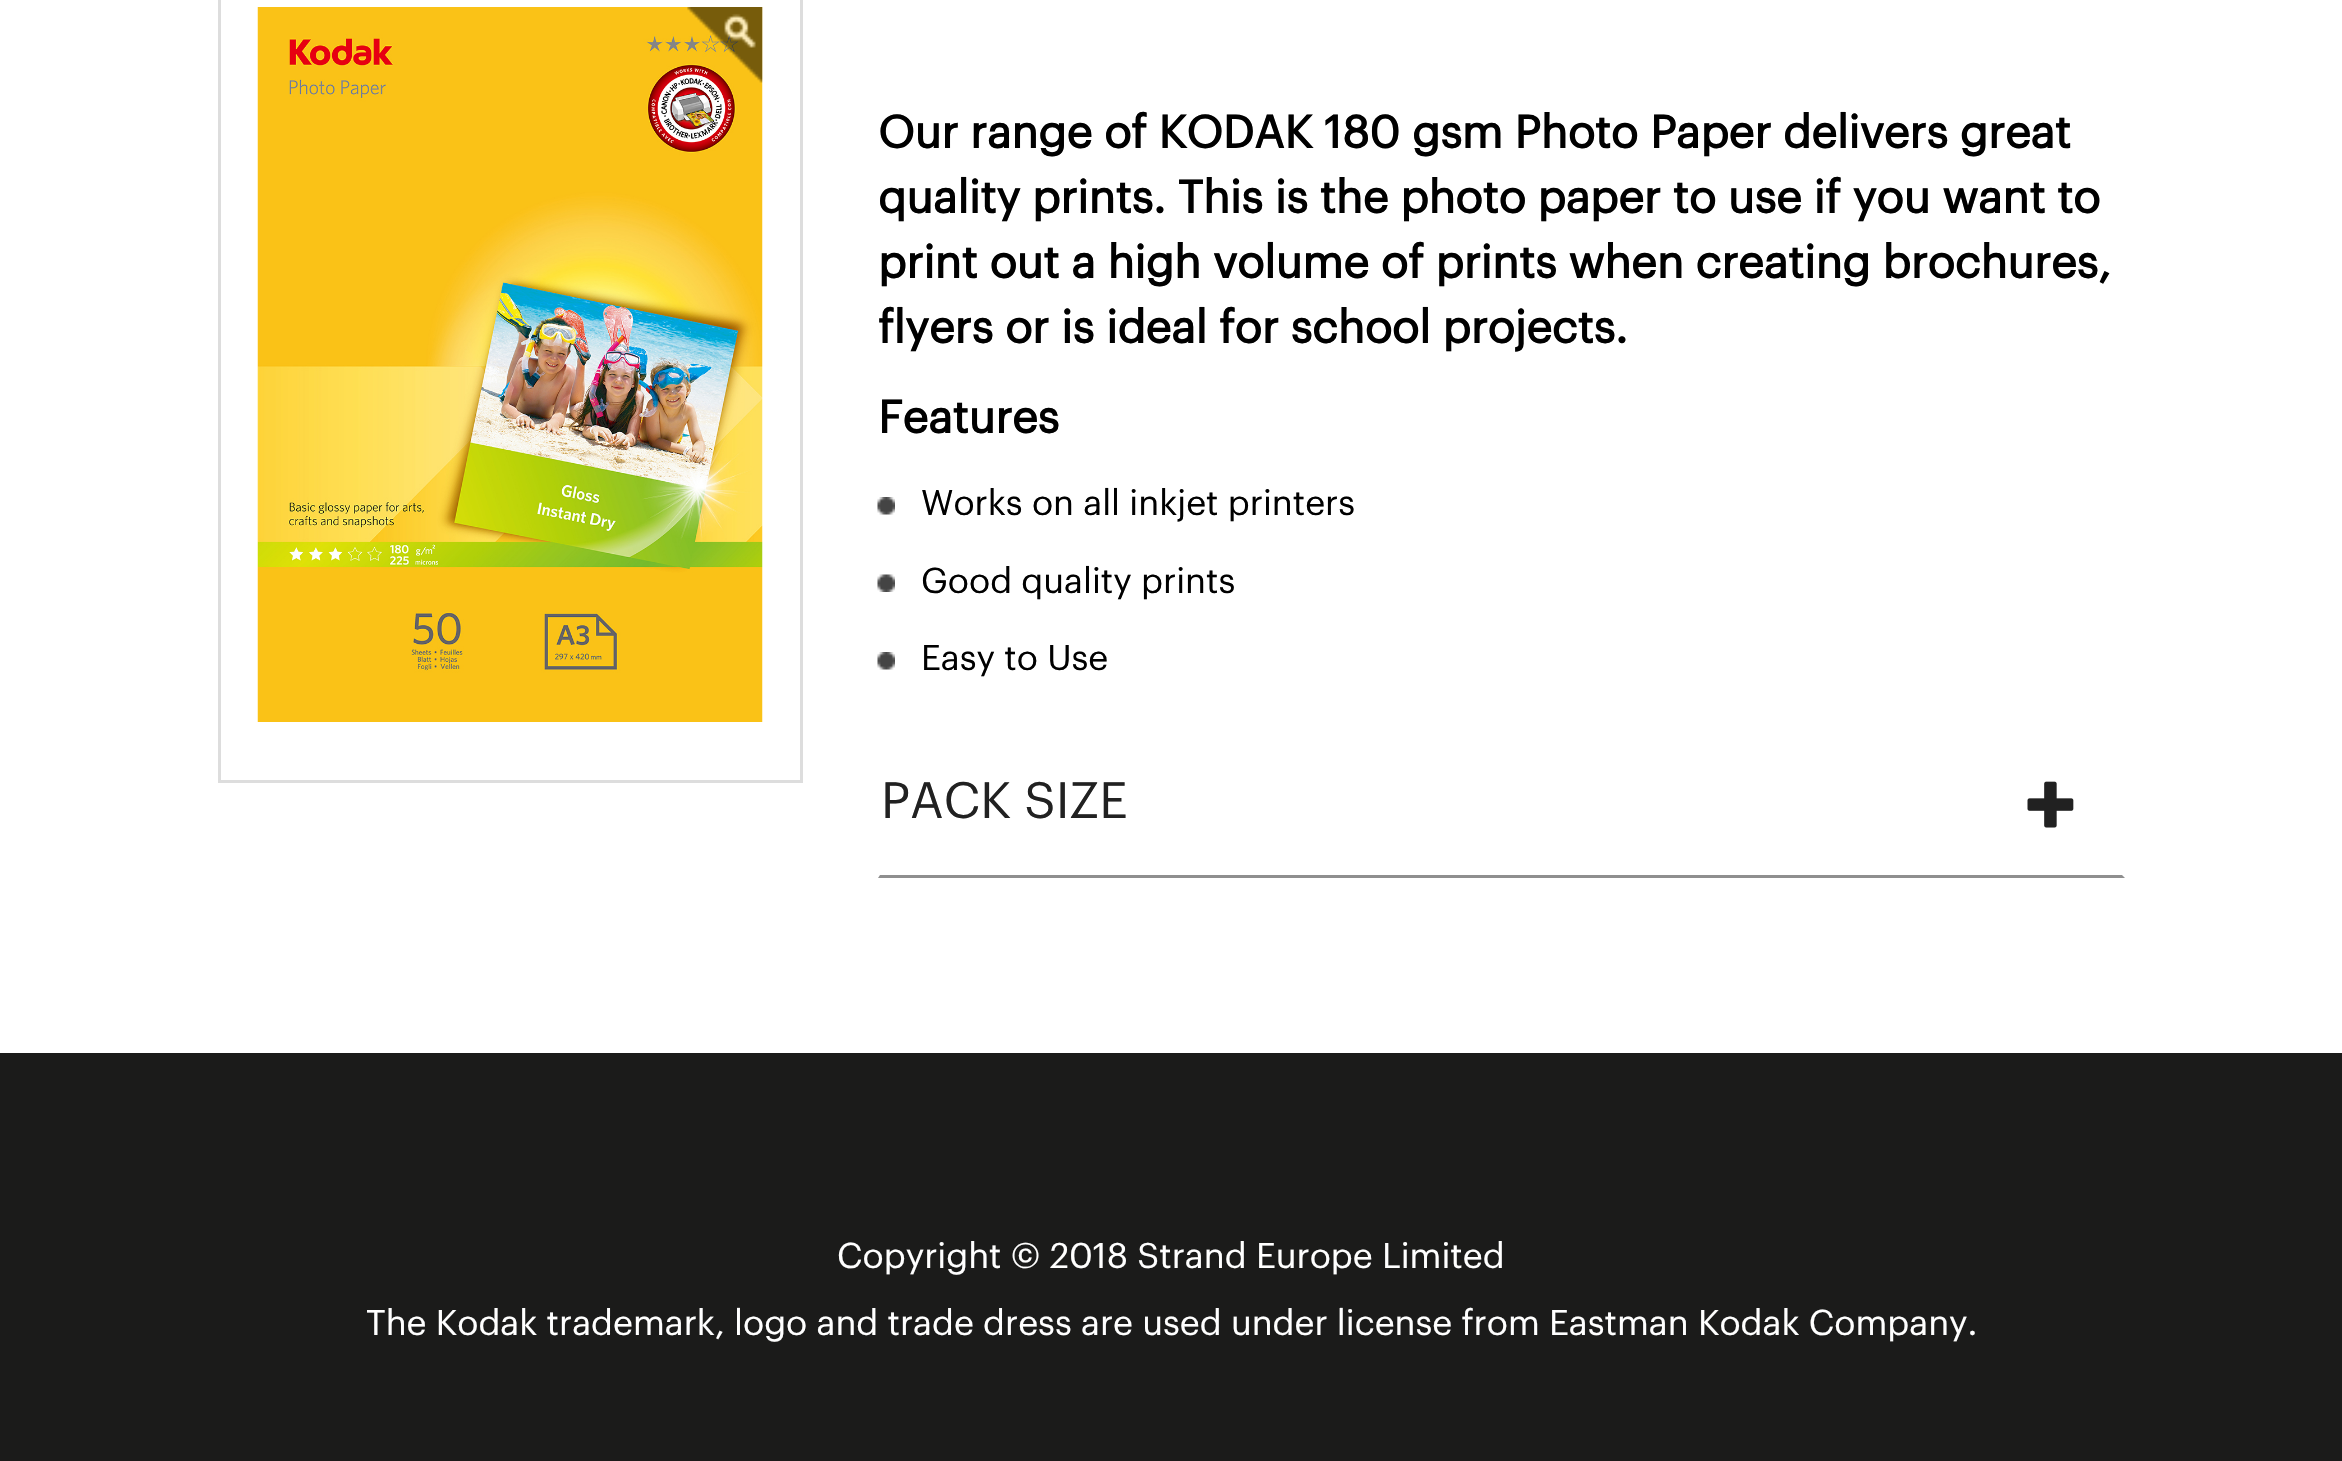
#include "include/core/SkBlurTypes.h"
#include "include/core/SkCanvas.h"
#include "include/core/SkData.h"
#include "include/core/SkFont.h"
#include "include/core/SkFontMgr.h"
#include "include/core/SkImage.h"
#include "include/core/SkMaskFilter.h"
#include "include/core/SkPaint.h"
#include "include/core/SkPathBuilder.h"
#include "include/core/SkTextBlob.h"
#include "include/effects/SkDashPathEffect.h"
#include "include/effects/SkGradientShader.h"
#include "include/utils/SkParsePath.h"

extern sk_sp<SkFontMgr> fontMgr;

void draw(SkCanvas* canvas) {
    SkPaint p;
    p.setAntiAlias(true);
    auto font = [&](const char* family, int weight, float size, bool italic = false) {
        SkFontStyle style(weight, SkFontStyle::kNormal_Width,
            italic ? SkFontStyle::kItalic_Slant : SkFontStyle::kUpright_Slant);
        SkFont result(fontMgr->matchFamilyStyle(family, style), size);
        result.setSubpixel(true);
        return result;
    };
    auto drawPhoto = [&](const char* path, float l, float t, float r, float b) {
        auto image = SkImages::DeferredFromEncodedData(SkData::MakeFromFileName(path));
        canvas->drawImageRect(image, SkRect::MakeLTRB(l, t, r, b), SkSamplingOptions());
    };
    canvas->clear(0xFFFFFFFF);
    p.setStyle(SkPaint::kStroke_Style);
    p.setStrokeWidth(3);
    p.setColor(0xFFDDDDDD);
    canvas->drawRect(SkRect::MakeLTRB(219.5f, -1.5f, 801.5f, 781.5f), p);
    drawPhoto("media/1.png", 257, 7, 763, 722);
    drawPhoto("media/2.png", 687, 7, 763, 83);
    auto font1 = font("Graphik", 700, 45);
    p.setStyle(SkPaint::kFill_Style);
    p.setColor(0xFF000000);
    {
        const struct { const char* s; float x, y; } items[] = {
            {"Our range of KODAK 180 gsm Photo Paper delivers great", 878, 148},
            {"quality prints. This is the photo paper to use if you want to", 878, 213},
            {"print out a high volume of prints when creating brochures,", 878, 278},
            {"flyers or is ideal for school projects.", 878, 343},
            {"Features", 878, 433},
        };
        for (auto [s, x, y] : items) {
            canvas->drawString(s, x, y, font1, p);
        }
    }
    drawPhoto("media/3.png", 877, 497, 895, 515);
    auto font2 = font("Graphik", 400, 35);
    canvas->drawString("Works on all inkjet printers", 921, 515, font2, p);
    drawPhoto("media/4.png", 877, 574, 895, 592);
    canvas->drawString("Good quality prints", 921, 593, font2, p);
    drawPhoto("media/3.png", 877, 652, 895, 670);
    canvas->drawString("Easy to Use", 921, 670, font2, p);
    p.setColor(0xFF8F8F8F);
    canvas->drawPath(SkPathBuilder().moveTo(2125, 878).lineTo(878, 878).lineTo(880, 875).lineTo(2122, 875).close().detach(), p);
    auto font3 = font("Graphik", 400, 50);
    p.setColor(0xFF212121);
    canvas->drawString("PACK SIZE", 881, 818, font3, p);
    drawPhoto("media/5.png", 2027, 781, 2074, 828);
    p.setColor(0xFF1B1B1A);
    canvas->drawRect(SkRect::MakeLTRB(0, 1053, 2342, 1461), p);
    p.setColor(0xFFFFFFFF);
    canvas->drawString("Copyright © 2018 Strand Europe Limited", 837, 1268, font2, p);
    canvas->drawString("The Kodak trademark, logo and trade dress are used under license from Eastman Kodak Company.", 366, 1335, font2, p);
}
